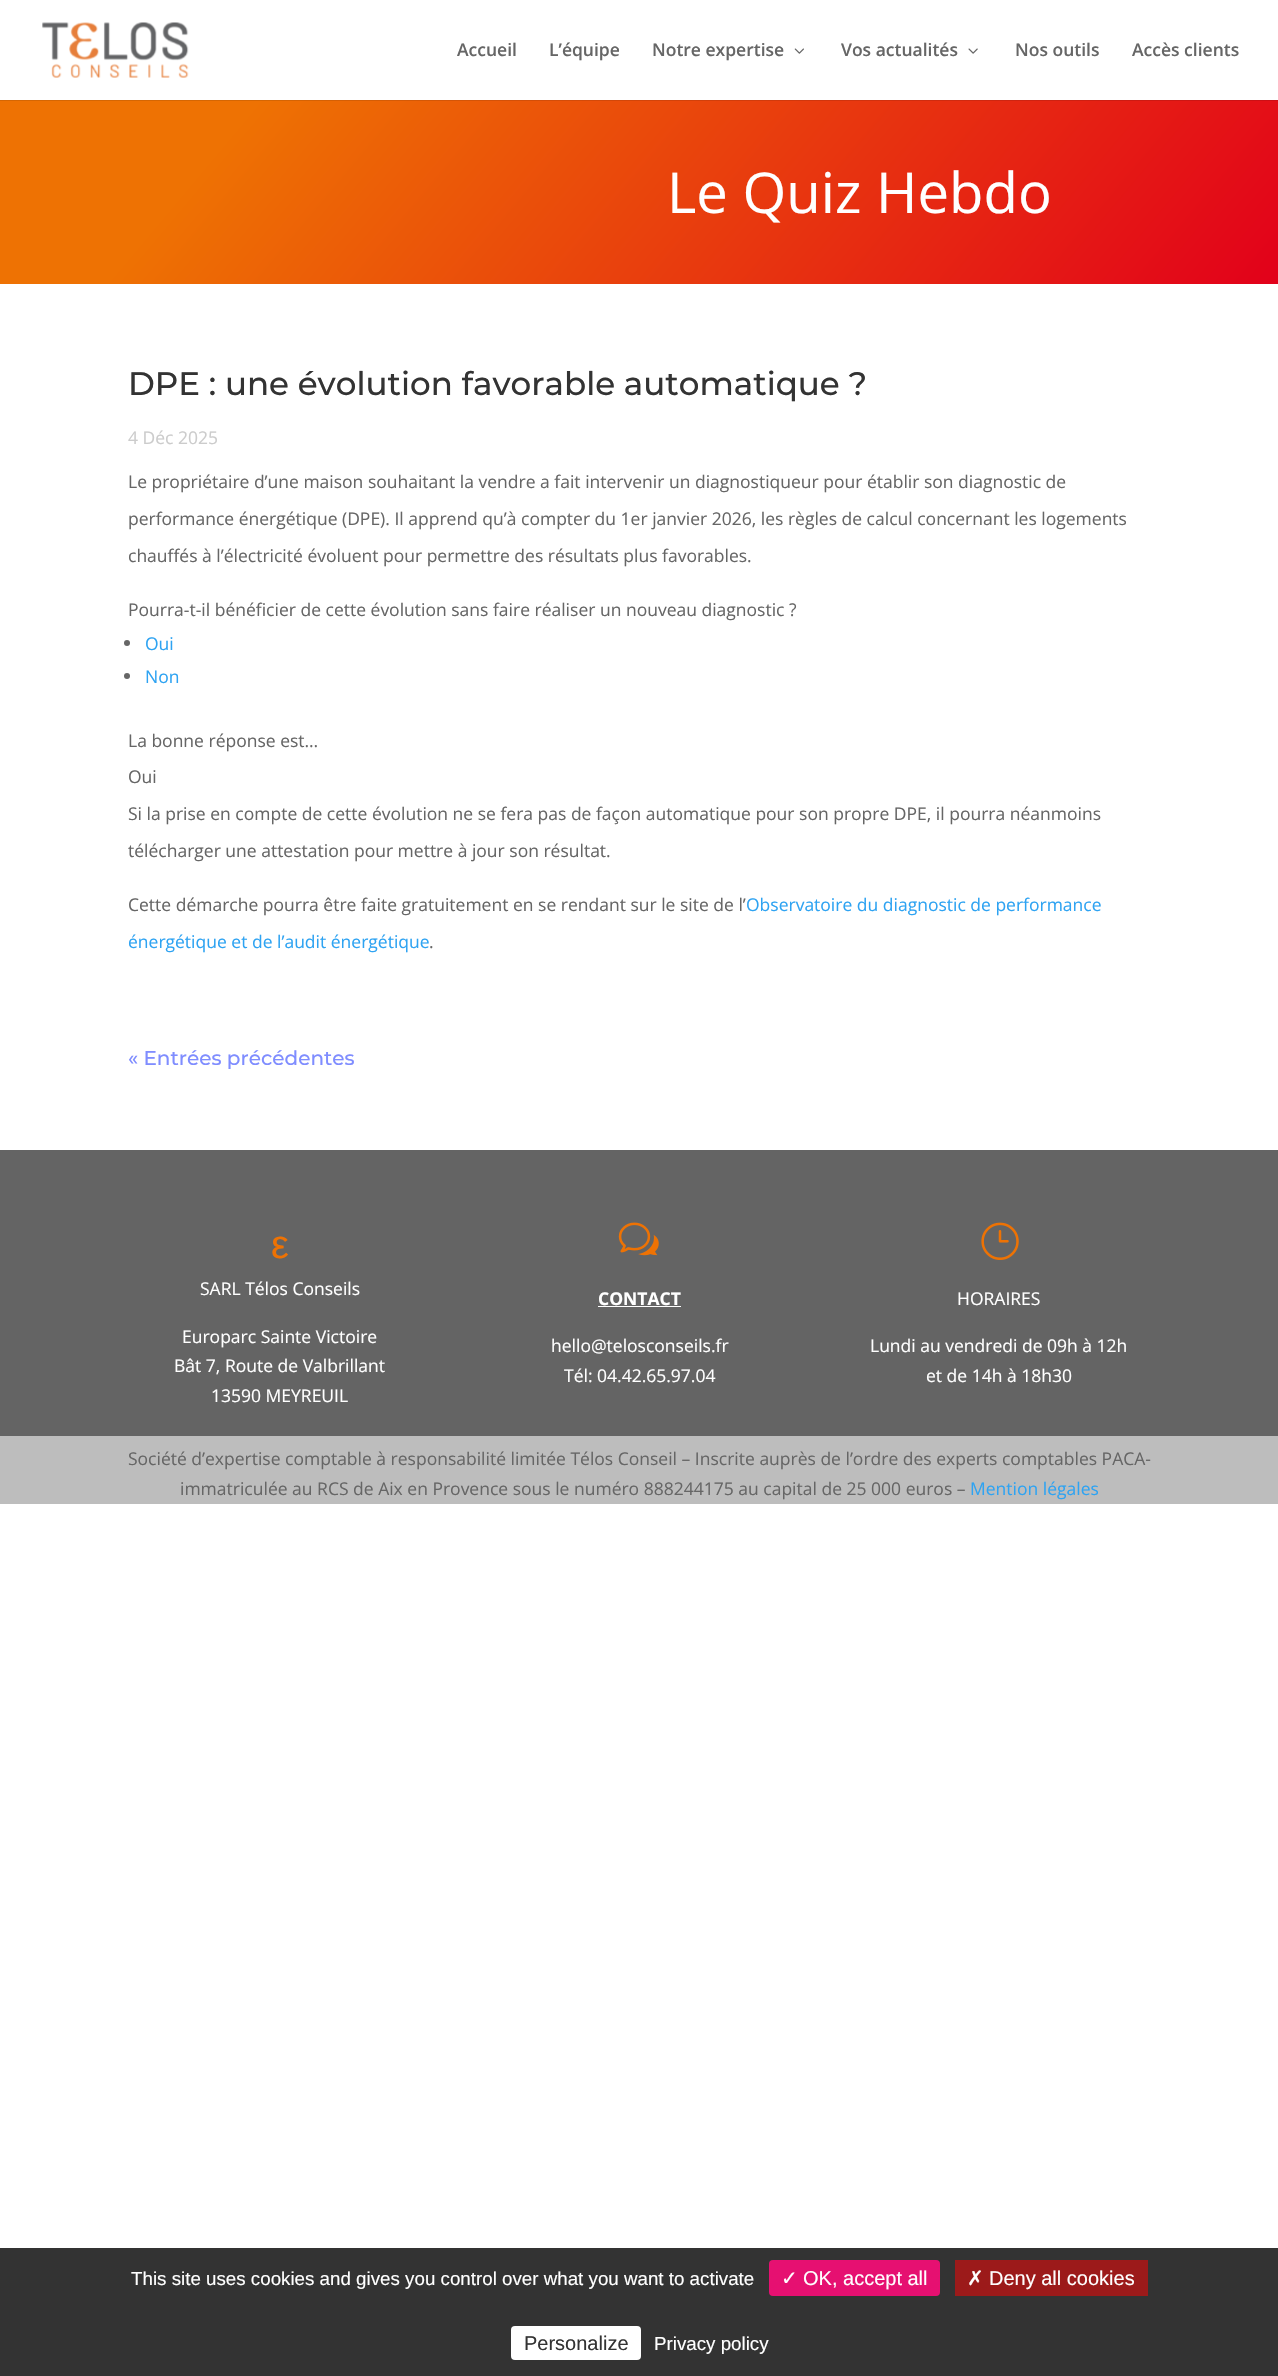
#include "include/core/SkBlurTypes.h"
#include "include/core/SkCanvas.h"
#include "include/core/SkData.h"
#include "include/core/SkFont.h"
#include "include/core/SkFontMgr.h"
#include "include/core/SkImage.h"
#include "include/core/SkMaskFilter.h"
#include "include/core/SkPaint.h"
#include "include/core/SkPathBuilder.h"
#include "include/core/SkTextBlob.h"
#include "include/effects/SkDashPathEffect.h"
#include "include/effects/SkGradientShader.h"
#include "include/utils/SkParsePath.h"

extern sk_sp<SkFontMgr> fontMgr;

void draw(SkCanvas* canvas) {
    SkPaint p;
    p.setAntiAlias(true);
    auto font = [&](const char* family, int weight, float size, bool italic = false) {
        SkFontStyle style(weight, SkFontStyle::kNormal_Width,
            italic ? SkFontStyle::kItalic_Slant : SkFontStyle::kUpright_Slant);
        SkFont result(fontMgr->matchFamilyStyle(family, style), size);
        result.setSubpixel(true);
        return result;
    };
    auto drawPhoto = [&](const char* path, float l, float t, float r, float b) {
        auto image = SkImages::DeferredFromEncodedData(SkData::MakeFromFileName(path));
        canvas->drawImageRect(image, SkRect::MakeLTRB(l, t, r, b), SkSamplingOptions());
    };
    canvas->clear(0xFFFFFFFF);
    {
        const SkColor colors[] = {0xFFEE7203, 0xFFE2001A};
        const float stops[] = {0.18f, 1};
        const SkPoint ends[] = {{219, -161}, {1060, 545}};
        p.setShader(SkGradientShader::MakeLinear(ends, colors, stops, 2, SkTileMode::kClamp));
        p.setAlpha(255);
    }
    canvas->drawRect(SkRect::MakeLTRB(0, 100, 1278, 284), p);
    p.setShader(nullptr);
    p.setColor(0x1A000000);
    canvas->drawPath(SkPathBuilder().moveTo(0, 100).lineTo(0, 101).lineTo(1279, 101).lineTo(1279, 1).lineTo(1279, 100).close().detach(), p);
    drawPhoto("media/1.png", 42, 22, 189, 78);
    auto font1 = font("Open Sans", 600, 17.5f);
    p.setColor(0xFF666666);
    {
        const struct { const char* s; float x, y; } items[] = {
            {"Accueil", 457, 56},
            {"L’équipe", 549, 56},
            {"Notre expertise", 652, 56},
        };
        for (auto [s, x, y] : items) {
            canvas->drawString(s, x, y, font1, p);
        }
    }
    drawPhoto("media/2.png", 794, 48, 804, 54);
    canvas->drawString("Vos actualités", 841, 56, font1, p);
    drawPhoto("media/3.png", 968, 48, 978, 54);
    canvas->drawString("Nos outils", 1015, 56, font1, p);
    canvas->drawString("Accès clients", 1132, 56, font1, p);
    auto font2 = font("Open Sans", 400, 56.25f);
    p.setColor(0xFFFFFFFF);
    canvas->drawString("Le Quiz Hebdo", 667, 213, font2, p);
    auto font3 = font("Montserrat", 100, 32.5f);
    p.setColor(0xFF333333);
    canvas->drawString("DPE : une évolution favorable automatique ?", 128, 395, font3, p);
    auto font4 = font("Open Sans", 400, 17.5f);
    p.setColor(0xFFCCCCCC);
    canvas->drawString("4 Déc 2025", 128, 444, font4, p);
    p.setColor(0xFF666666);
    {
        const struct { const char* s; float x, y; } items[] = {
            {"Le propriétaire d’une maison souhaitant la vendre a fait intervenir un diagnostiqueur pour établir son diagnostic de", 128, 488},
            {"performance énergétique (DPE). Il apprend qu’à compter du 1er janvier 2026, les règles de calcul concernant les logements", 128, 525},
            {"chauffés à l’électricité évoluent pour permettre des résultats plus favorables.", 128, 562},
            {"Pourra-t-il bénéficier de cette évolution sans faire réaliser un nouveau diagnostic ?", 128, 616},
        };
        for (auto [s, x, y] : items) {
            canvas->drawString(s, x, y, font4, p);
        }
    }
    canvas->drawCircle(127, 643, 3, p);
    p.setColor(0xFF2EA3F2);
    canvas->drawString("Oui", 145, 650, font4, p);
    p.setColor(0xFF666666);
    canvas->drawCircle(127, 676, 3, p);
    p.setColor(0xFF2EA3F2);
    canvas->drawString("Non", 145, 683, font4, p);
    p.setColor(0xFF666666);
    {
        const struct { const char* s; float x, y; } items[] = {
            {"La bonne réponse est…", 128, 747},
            {"Oui", 128, 783},
            {"Si la prise en compte de cette évolution ne se fera pas de façon automatique pour son propre DPE, il pourra néanmoins", 128, 820},
            {"télécharger une attestation pour mettre à jour son résultat.", 128, 857},
            {"Cette démarche pourra être faite gratuitement en se rendant sur le site de l’", 128, 911},
        };
        for (auto [s, x, y] : items) {
            canvas->drawString(s, x, y, font4, p);
        }
    }
    p.setColor(0xFF2EA3F2);
    canvas->drawString("Observatoire du diagnostic de performance", 746, 911, font4, p);
    canvas->drawString("énergétique et de l’audit énergétique", 128, 948, font4, p);
    p.setColor(0xFF666666);
    canvas->drawString(".", 429, 948, font4, p);
    auto font5 = font("Montserrat", 100, 20);
    p.setColor(0xFF7F8DFF);
    canvas->drawString("« Entrées précédentes", 128, 1065, font5, p);
    p.setColor(0xFF646464);
    canvas->drawRect(SkRect::MakeLTRB(0, 1150, 1278, 1436), p);
    auto font6 = font("Liberation Sans", 400, 40);
    p.setColor(0xFFEE7203);
    canvas->drawString("ε", 271, 1258, font6, p);
    p.setColor(0xFFFFFFFF);
    {
        const struct { const char* s; float x, y; } items[] = {
            {"SARL Télos Conseils", 200, 1295},
            {"Europarc Sainte Victoire", 182, 1343},
            {"Bât 7, Route de Valbrillant", 174, 1372},
            {"13590 MEYREUIL", 211, 1402},
        };
        for (auto [s, x, y] : items) {
            canvas->drawString(s, x, y, font4, p);
        }
    }
    drawPhoto("media/4.png", 618, 1222, 659, 1256);
    auto font7 = font("Open Sans", 700, 17.5f);
    canvas->drawString("CONTACT", 598, 1305, font7, p);
    canvas->drawRect(SkRect::MakeLTRB(598, 1306, 681, 1307), p);
    canvas->drawString("hello@telosconseils.fr", 551, 1352, font4, p);
    canvas->drawString("Tél: 04.42.65.97.04", 564, 1382, font4, p);
    drawPhoto("media/5.png", 981, 1222, 1019, 1260);
    {
        const struct { const char* s; float x, y; } items[] = {
            {"HORAIRES", 957, 1305},
            {"Lundi au vendredi de 09h à 12h", 870, 1352},
            {"et de 14h à 18h30", 926, 1382},
        };
        for (auto [s, x, y] : items) {
            canvas->drawString(s, x, y, font4, p);
        }
    }
    p.setColor(0xFFBDBDBD);
    canvas->drawRect(SkRect::MakeLTRB(0, 1436, 1278, 1504), p);
    p.setColor(0xFF666666);
    canvas->drawString("Société d’expertise comptable à responsabilité limitée Télos Conseil – Inscrite auprès de l’ordre des experts comptables PACA-", 128, 1465, font4, p);
    canvas->drawString("immatriculée au RCS de Aix en Provence sous le numéro 888244175 au capital de 25 000 euros –", 180, 1495, font4, p);
    p.setColor(0xFF2EA3F2);
    canvas->drawString("Mention légales", 970, 1495, font4, p);
    p.setColor(0xFF333333);
    canvas->drawRect(SkRect::MakeLTRB(0, 2248, 1278, 2376), p);
    auto font8 = font("Liberation Sans", 400, 18.75f);
    p.setColor(0xFFFFFFFF);
    canvas->drawString("This site uses cookies and gives you control over what you want to activate", 131, 2285, font8, p);
    p.setColor(0xFFE61071);
    canvas->drawRoundRect(SkRect::MakeLTRB(769, 2260, 940, 2296), 4, 4, p);
    auto font9 = font("DejaVu Sans", 400, 20);
    p.setColor(0xFFFFFFFF);
    canvas->drawString("✓", 781, 2285, font9, p);
    auto font10 = font("Liberation Sans", 400, 20);
    canvas->drawString("OK, accept all", 803, 2285, font10, p);
    p.setColor(0xFF9C1A1A);
    canvas->drawRect(SkRect::MakeLTRB(955, 2260, 1148, 2296), p);
    p.setColor(0xFFFFFFFF);
    canvas->drawString("✗", 967, 2285, font9, p);
    canvas->drawString("Deny all cookies", 989, 2285, font10, p);
    canvas->drawRoundRect(SkRect::MakeLTRB(511, 2326, 641, 2360), 4, 4, p);
    p.setColor(0xFF333333);
    canvas->drawString("Personalize", 524, 2350, font10, p);
    p.setColor(0xFFFFFFFF);
    canvas->drawString("Privacy policy", 654, 2350, font8, p);
}
